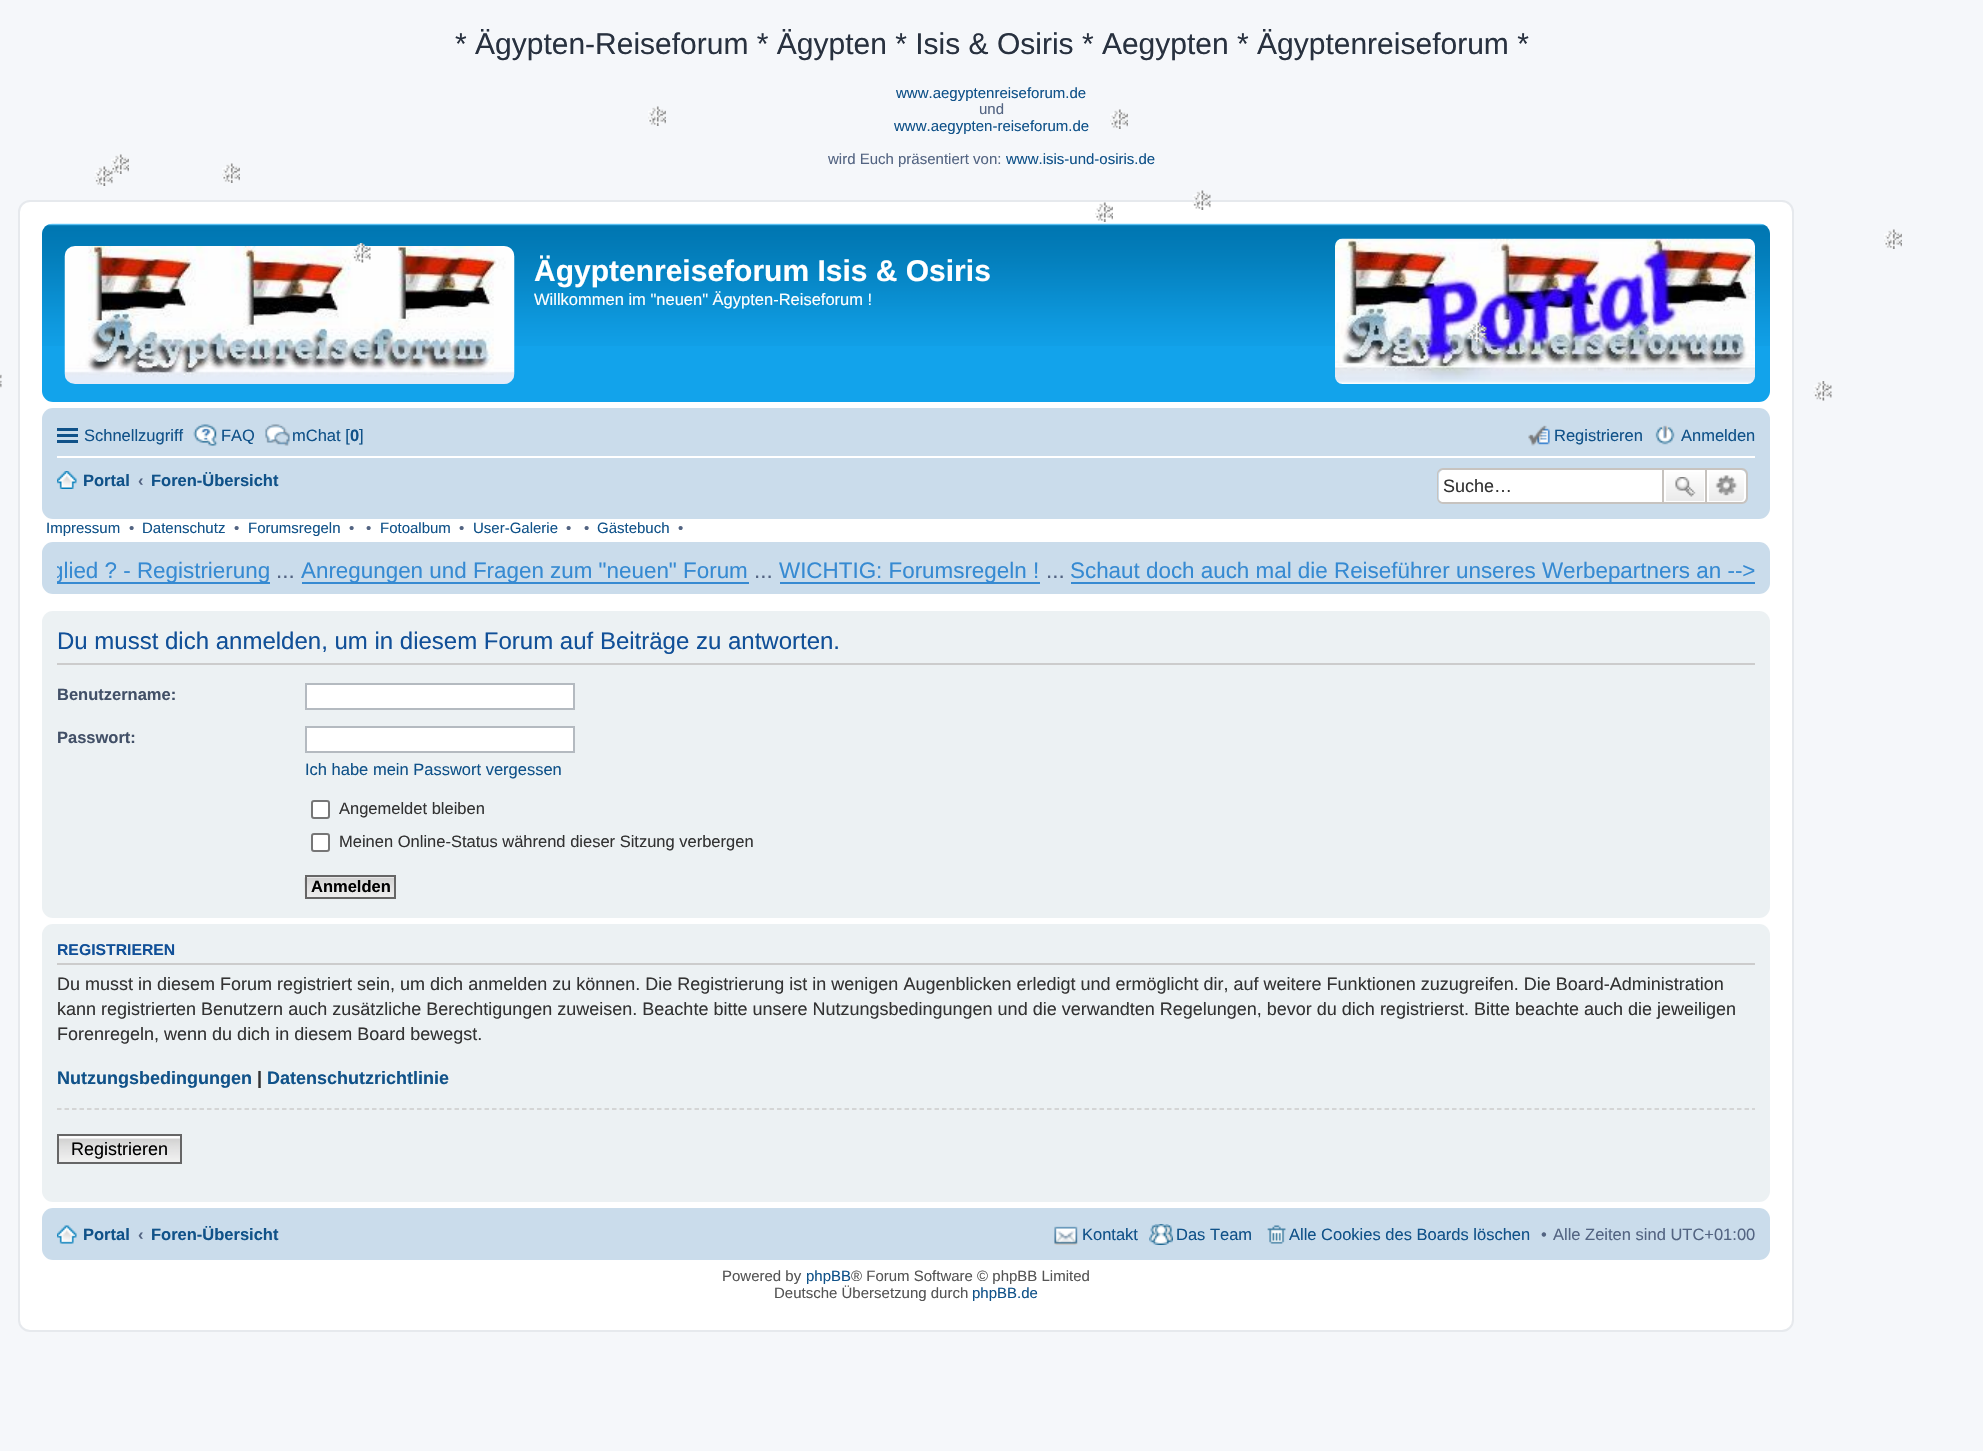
#include "include/core/SkBlurTypes.h"
#include "include/core/SkCanvas.h"
#include "include/core/SkData.h"
#include "include/core/SkFont.h"
#include "include/core/SkFontMgr.h"
#include "include/core/SkImage.h"
#include "include/core/SkMaskFilter.h"
#include "include/core/SkPaint.h"
#include "include/core/SkPathBuilder.h"
#include "include/core/SkTextBlob.h"
#include "include/effects/SkDashPathEffect.h"
#include "include/effects/SkGradientShader.h"
#include "include/utils/SkParsePath.h"

extern sk_sp<SkFontMgr> fontMgr;

void draw(SkCanvas* canvas) {
    SkPaint p;
    p.setAntiAlias(true);
    auto font = [&](const char* family, int weight, float size, bool italic = false) {
        SkFontStyle style(weight, SkFontStyle::kNormal_Width,
            italic ? SkFontStyle::kItalic_Slant : SkFontStyle::kUpright_Slant);
        SkFont result(fontMgr->matchFamilyStyle(family, style), size);
        result.setSubpixel(true);
        return result;
    };
    auto drawPhoto = [&](const char* path, float l, float t, float r, float b) {
        auto image = SkImages::DeferredFromEncodedData(SkData::MakeFromFileName(path));
        canvas->drawImageRect(image, SkRect::MakeLTRB(l, t, r, b), SkSamplingOptions());
    };
    canvas->clear(0xFFF5F7FA);
    auto font1 = font("Liberation Sans", 400, 30);
    p.setColor(0xFF28313F);
    canvas->drawString("* Ägypten-Reiseforum * Ägypten * Isis & Osiris * Aegypten * Ägyptenreiseforum *", 455, 54, font1, p);
    auto font2 = font("Liberation Sans", 400, 15);
    p.setColor(0xFF105289);
    canvas->drawString("www.aegyptenreiseforum.de", 896, 98, font2, p);
    p.setColor(0xFF536482);
    canvas->drawString("und", 979, 114, font2, p);
    p.setColor(0xFF105289);
    canvas->drawString("www.aegypten-reiseforum.de", 894, 131, font2, p);
    drawPhoto("media/1.png", 648, 106, 666, 126);
    drawPhoto("media/2.png", 1110, 109, 1128, 129);
    drawPhoto("media/3.png", 94, 166, 113, 186);
    drawPhoto("media/4.png", 111, 154, 129, 174);
    drawPhoto("media/1.png", 222, 163, 240, 183);
    p.setColor(0xFF536482);
    canvas->drawString("wird Euch präsentiert von:", 828, 164, font2, p);
    p.setColor(0xFF105289);
    canvas->drawString("www.isis-und-osiris.de", 1006, 164, font2, p);
    p.setColor(0xFFFFFFFF);
    canvas->drawRoundRect(SkRect::MakeLTRB(19, 201, 1793, 1331), 11, 11, p);
    p.setStyle(SkPaint::kStroke_Style);
    p.setStrokeWidth(2);
    p.setColor(0xFFE6E9ED);
    canvas->drawRoundRect(SkRect::MakeLTRB(19, 201, 1793, 1331), 11, 11, p);
    drawPhoto("media/5.png", 1192, 190, 1211, 210);
    drawPhoto("media/6.png", 1095, 202, 1113, 222);
    drawPhoto("media/2.png", 1884, 229, 1902, 249);
    p.setStyle(SkPaint::kFill_Style);
    p.setColor(0xFF12A3EB);
    canvas->drawRoundRect(SkRect::MakeLTRB(42, 224, 1770, 402), 11, 11, p);
    drawPhoto("media/8.png", 42, 223, 1770, 346);
    drawPhoto("media/9.png", 64, 246, 515, 384);
    drawPhoto("media/7.png", 352, 243, 371, 263);
    auto font3 = font("Liberation Sans", 700, 30);
    p.setColor(0xFFFFFFFF);
    canvas->drawString("Ägyptenreiseforum Isis & Osiris", 534, 281, font3, p);
    auto font4 = font("Liberation Sans", 400, 16.5f);
    canvas->drawString("Willkommen im \"neuen\" Ägypten-Reiseforum !", 534, 305, font4, p);
    drawPhoto("media/10.png", 1335, 238, 1755, 384);
    p.setColor(0xFFCADCEB);
    canvas->drawRoundRect(SkRect::MakeLTRB(42, 408, 1770, 519), 11, 11, p);
    {
        const struct { float l, t, r, b; SkColor color; } items[] = {
            {57, 428, 78, 431, 0xFF105289},
            {57, 434, 78, 437, 0xFF105289},
            {57, 440, 78, 443, 0xFF105289},
        };
        for (auto [l, t, r, b, color] : items) {
            p.setColor(color);
            canvas->drawRect(SkRect::MakeLTRB(l, t, r, b), p);
        }
    }
    canvas->drawString("Schnellzugriff", 84, 441, font4, p);
    drawPhoto("media/11.png", 193, 424, 218, 446);
    canvas->drawString("FAQ", 221, 441, font4, p);
    drawPhoto("media/12.png", 265, 424, 290, 446);
    canvas->drawString("mChat [", 292, 441, font4, p);
    auto font5 = font("Liberation Sans", 700, 16.5f);
    canvas->drawString("0", 350, 441, font5, p);
    canvas->drawString("]", 359, 441, font4, p);
    drawPhoto("media/13.png", 1528, 425, 1550, 446);
    canvas->drawString("Registrieren", 1554, 441, font4, p);
    drawPhoto("media/14.png", 1655, 425, 1675, 445);
    canvas->drawString("Anmelden", 1681, 441, font4, p);
    p.setColor(0xFFFFFFFF);
    canvas->drawRect(SkRect::MakeLTRB(57, 456, 1755, 458), p);
    drawPhoto("media/15.png", 57, 471, 77, 489);
    p.setColor(0xFF105289);
    canvas->drawString("Portal", 83, 486, font5, p);
    p.setColor(0xFF536482);
    canvas->drawString("‹", 138, 486, font5, p);
    p.setColor(0xFF105289);
    canvas->drawString("Foren-Übersicht", 151, 486, font5, p);
    p.setColor(0xFFFFFFFF);
    canvas->drawPath(SkPathBuilder().moveTo(1444, 470).lineTo(1662, 470).lineTo(1662, 503).lineTo(1444, 503).cubicTo(1441, 503, 1439, 501, 1439, 498).lineTo(1439, 475).cubicTo(1439, 472, 1441, 470, 1444, 470).close().detach(), p);
    p.setColor(0xFFC7C3BF);
    canvas->drawPath(SkPathBuilder(SkPathFillType::kEvenOdd).moveTo(1443, 468).lineTo(1662, 468).lineTo(1662, 504).lineTo(1443, 504).cubicTo(1440, 504, 1437, 501, 1437, 498).lineTo(1437, 474).cubicTo(1437, 471, 1440, 468, 1443, 468).close().moveTo(1443, 470).lineTo(1662, 470).lineTo(1662, 502).lineTo(1443, 502).cubicTo(1441, 502, 1438, 500, 1438, 498).lineTo(1438, 474).cubicTo(1438, 472, 1441, 470, 1443, 470).close().detach(), p);
    auto font6 = font("Liberation Sans", 400, 18);
    p.setColor(0xFF333333);
    canvas->drawString("Suche…", 1443, 492, font6, p);
    {
        const SkColor colors[] = {0xFFFFFFFF, 0xFFE9E9E9};
        const float stops[] = {0, 1};
        const SkPoint ends[] = {{1685, 470}, {1685, 503}};
        p.setShader(SkGradientShader::MakeLinear(ends, colors, stops, 2, SkTileMode::kClamp));
        p.setAlpha(255);
    }
    canvas->drawRect(SkRect::MakeLTRB(1666, 472, 1704, 501), p);
    p.setStyle(SkPaint::kStroke_Style);
    p.setShader(nullptr);
    p.setColor(0xFFFFFFFF);
    canvas->drawRect(SkRect::MakeLTRB(1665, 471, 1705, 502), p);
    p.setColor(0xFFC7C3BF);
    canvas->drawRect(SkRect::MakeLTRB(1663, 469, 1706, 503), p);
    drawPhoto("media/16.png", 1675, 477, 1696, 497);
    p.setStyle(SkPaint::kFill_Style);
    {
        const SkColor colors[] = {0xFFFFFFFF, 0xFFE9E9E9};
        const float stops[] = {0, 1};
        const SkPoint ends[] = {{1727, 470}, {1727, 503}};
        p.setShader(SkGradientShader::MakeLinear(ends, colors, stops, 2, SkTileMode::kClamp));
        p.setAlpha(255);
    }
    canvas->drawPath(SkPathBuilder().moveTo(1708, 471).lineTo(1741, 471).cubicTo(1743, 471, 1745, 473, 1745, 475).lineTo(1745, 498).cubicTo(1745, 500, 1743, 502, 1741, 502).lineTo(1708, 502).close().detach(), p);
    p.setStyle(SkPaint::kStroke_Style);
    p.setShader(nullptr);
    p.setColor(0xFFFFFFFF);
    canvas->drawPath(SkPathBuilder().moveTo(1708, 471).lineTo(1741, 471).cubicTo(1743, 471, 1745, 473, 1745, 475).lineTo(1745, 498).cubicTo(1745, 500, 1743, 502, 1741, 502).lineTo(1708, 502).close().detach(), p);
    p.setStyle(SkPaint::kFill_Style);
    p.setColor(0xFFC7C3BF);
    canvas->drawPath(SkPathBuilder(SkPathFillType::kEvenOdd).moveTo(1707, 468).lineTo(1742, 468).cubicTo(1745, 468, 1748, 471, 1748, 474).lineTo(1748, 498).cubicTo(1748, 501, 1745, 504, 1742, 504).lineTo(1707, 504).close().moveTo(1707, 470).lineTo(1742, 470).cubicTo(1744, 470, 1746, 472, 1746, 474).lineTo(1746, 498).cubicTo(1746, 500, 1744, 502, 1742, 502).lineTo(1707, 502).close().detach(), p);
    drawPhoto("media/17.png", 1715, 475, 1738, 496);
    p.setColor(0xFF105289);
    canvas->drawString("Impressum", 46, 533, font2, p);
    p.setColor(0xFF536482);
    canvas->drawString("•", 129, 533, font2, p);
    p.setColor(0xFF105289);
    canvas->drawString("Datenschutz", 142, 533, font2, p);
    p.setColor(0xFF536482);
    canvas->drawString("•", 234, 533, font2, p);
    p.setColor(0xFF105289);
    canvas->drawString("Forumsregeln", 248, 533, font2, p);
    p.setColor(0xFF536482);
    canvas->drawString("•", 349, 533, font2, p);
    canvas->drawString("•", 366, 533, font2, p);
    p.setColor(0xFF105289);
    canvas->drawString("Fotoalbum", 380, 533, font2, p);
    p.setColor(0xFF536482);
    canvas->drawString("•", 459, 533, font2, p);
    p.setColor(0xFF105289);
    canvas->drawString("User-Galerie", 473, 533, font2, p);
    p.setColor(0xFF536482);
    canvas->drawString("•", 566, 533, font2, p);
    canvas->drawString("•", 584, 533, font2, p);
    p.setColor(0xFF105289);
    canvas->drawString("Gästebuch", 597, 533, font2, p);
    p.setColor(0xFF536482);
    canvas->drawString("•", 678, 533, font2, p);
    p.setColor(0xFFCADCEB);
    canvas->drawRoundRect(SkRect::MakeLTRB(42, 542, 1770, 594), 11, 11, p);
    p.setColor(0xFF368AD2);
    canvas->drawRect(SkRect::MakeLTRB(57, 582, 270, 584), p);
    canvas->save();
    canvas->clipRect(SkRect::MakeLTRB(57, 546, 1755, 587));
    auto font7 = font("Liberation Sans", 400, 22.4f);
    canvas->drawString("glied ? - Registrierung", 51, 578, font7, p);
    canvas->restore();
    p.setColor(0xFF536482);
    canvas->drawString("...", 276, 578, font7, p);
    p.setColor(0xFF368AD2);
    canvas->drawRect(SkRect::MakeLTRB(302, 582, 749, 584), p);
    canvas->drawString("Anregungen und Fragen zum \"neuen\" Forum", 301, 578, font7, p);
    p.setColor(0xFF536482);
    canvas->drawString("...", 754, 578, font7, p);
    p.setColor(0xFF368AD2);
    canvas->drawRect(SkRect::MakeLTRB(780, 582, 1040, 584), p);
    canvas->drawString("WICHTIG: Forumsregeln !", 779, 578, font7, p);
    p.setColor(0xFF536482);
    canvas->drawString("...", 1046, 578, font7, p);
    p.setColor(0xFF368AD2);
    canvas->drawRect(SkRect::MakeLTRB(1071, 582, 1755, 584), p);
    canvas->drawString("Schaut doch auch mal die Reiseführer unseres Werbepartners an -->", 1070, 578, font7, p);
    p.setColor(0xFFECF1F3);
    canvas->drawRoundRect(SkRect::MakeLTRB(42, 611, 1770, 918), 11, 11, p);
    p.setColor(0xFFCCCCCC);
    canvas->drawRect(SkRect::MakeLTRB(57, 663, 1755, 665), p);
    auto font8 = font("Liberation Sans", 400, 24);
    p.setColor(0xFF115098);
    canvas->drawString("Du musst dich anmelden, um in diesem Forum auf Beiträge zu antworten.", 57, 649, font8, p);
    p.setColor(0xFF425067);
    canvas->drawString("Benutzername:", 57, 700, font5, p);
    p.setColor(0xFFFFFFFF);
    canvas->drawRect(SkRect::MakeLTRB(306, 684, 574, 709), p);
    p.setStyle(SkPaint::kStroke_Style);
    p.setColor(0xFFB4BAC0);
    canvas->drawRect(SkRect::MakeLTRB(306, 684, 574, 709), p);
    p.setStyle(SkPaint::kFill_Style);
    p.setColor(0xFF425067);
    canvas->drawString("Passwort:", 57, 743, font5, p);
    p.setColor(0xFFFFFFFF);
    canvas->drawRect(SkRect::MakeLTRB(306, 727, 574, 752), p);
    p.setStyle(SkPaint::kStroke_Style);
    p.setColor(0xFFB4BAC0);
    canvas->drawRect(SkRect::MakeLTRB(306, 727, 574, 752), p);
    p.setStyle(SkPaint::kFill_Style);
    p.setColor(0xFF105289);
    canvas->drawString("Ich habe mein Passwort vergessen", 305, 775, font4, p);
    p.setColor(0xFFFFFFFF);
    canvas->drawRoundRect(SkRect::MakeLTRB(312, 801, 329, 818), 2, 2, p);
    p.setStyle(SkPaint::kStroke_Style);
    p.setColor(0xFF767676);
    canvas->drawRoundRect(SkRect::MakeLTRB(312, 801, 329, 818), 2, 2, p);
    p.setStyle(SkPaint::kFill_Style);
    p.setColor(0xFF333333);
    canvas->drawString("Angemeldet bleiben", 339, 814, font4, p);
    p.setColor(0xFFFFFFFF);
    canvas->drawRoundRect(SkRect::MakeLTRB(312, 834, 329, 851), 2, 2, p);
    p.setStyle(SkPaint::kStroke_Style);
    p.setColor(0xFF767676);
    canvas->drawRoundRect(SkRect::MakeLTRB(312, 834, 329, 851), 2, 2, p);
    p.setStyle(SkPaint::kFill_Style);
    p.setColor(0xFF333333);
    canvas->drawString("Meinen Online-Status während dieser Sitzung verbergen", 339, 847, font4, p);
    drawPhoto("media/18.png", 304, 876, 394, 899);
    p.setStyle(SkPaint::kStroke_Style);
    p.setColor(0xFF666666);
    canvas->drawRect(SkRect::MakeLTRB(306, 876, 395, 898), p);
    p.setStyle(SkPaint::kFill_Style);
    p.setColor(0xFF000000);
    canvas->drawString("Anmelden", 311, 892, font5, p);
    p.setColor(0xFFECF1F3);
    canvas->drawRoundRect(SkRect::MakeLTRB(42, 924, 1770, 1202), 11, 11, p);
    p.setColor(0xFFCCCCCC);
    canvas->drawRect(SkRect::MakeLTRB(57, 963, 1755, 965), p);
    auto font9 = font("Liberation Sans", 700, 15.75f);
    p.setColor(0xFF115098);
    canvas->drawString("REGISTRIEREN", 57, 955, font9, p);
    p.setColor(0xFF333333);
    {
        const struct { const char* s; float x, y; } items[] = {
            {"Du musst in diesem Forum registriert sein, um dich anmelden zu können. Die Registrierung ist in wenigen Augenblicken erledigt und ermöglicht dir, auf weitere Funktionen zuzugreifen. Die Board-Administration", 57, 990},
            {"kann registrierten Benutzern auch zusätzliche Berechtigungen zuweisen. Beachte bitte unsere Nutzungsbedingungen und die verwandten Regelungen, bevor du dich registrierst. Bitte beachte auch die jeweiligen", 57, 1015},
            {"Forenregeln, wenn du dich in diesem Board bewegst.", 57, 1040},
        };
        for (auto [s, x, y] : items) {
            canvas->drawString(s, x, y, font6, p);
        }
    }
    auto font10 = font("Liberation Sans", 700, 18);
    p.setColor(0xFF105289);
    canvas->drawString("Nutzungsbedingungen", 57, 1084, font10, p);
    p.setColor(0xFF333333);
    canvas->drawString("|", 257, 1084, font10, p);
    p.setColor(0xFF105289);
    canvas->drawString("Datenschutzrichtlinie", 267, 1084, font10, p);
    p.setStyle(SkPaint::kStroke_Style);
    p.setStrokeWidth(1.5f);
    p.setColor(0xFFCCCCCC);
    p.setPathEffect(SkDashPathEffect::Make({{4.5f, 3}}, 0));
    canvas->drawPath(SkPathBuilder().moveTo(57, 1109).lineTo(1755, 1109).detach(), p);
    p.setPathEffect(nullptr);
    drawPhoto("media/19.png", 59, 1137, 180, 1162);
    p.setStyle(SkPaint::kFill_Style);
    p.setColor(0xFFFAFAFA);
    canvas->drawRect(SkRect::MakeLTRB(59, 1136, 180, 1137), p);
    p.setStyle(SkPaint::kStroke_Style);
    p.setStrokeWidth(2);
    p.setColor(0xFF666666);
    canvas->drawRect(SkRect::MakeLTRB(58, 1135, 181, 1163), p);
    p.setStyle(SkPaint::kFill_Style);
    p.setColor(0xFF000000);
    canvas->drawString("Registrieren", 71, 1155, font6, p);
    p.setColor(0xFFCADCEB);
    canvas->drawRoundRect(SkRect::MakeLTRB(42, 1208, 1770, 1260), 11, 11, p);
    drawPhoto("media/20.png", 57, 1225, 77, 1244);
    p.setColor(0xFF105289);
    canvas->drawString("Portal", 83, 1240, font5, p);
    p.setColor(0xFF536482);
    canvas->drawString("‹", 138, 1240, font5, p);
    p.setColor(0xFF105289);
    canvas->drawString("Foren-Übersicht", 151, 1240, font5, p);
    drawPhoto("media/21.png", 1054, 1226, 1078, 1245);
    canvas->drawString("Kontakt", 1082, 1240, font4, p);
    drawPhoto("media/22.png", 1149, 1224, 1173, 1245);
    canvas->drawString("Das Team", 1176, 1240, font4, p);
    drawPhoto("media/23.png", 1267, 1225, 1286, 1244);
    canvas->drawString("Alle Cookies des Boards löschen", 1289, 1240, font4, p);
    p.setColor(0xFF536482);
    canvas->drawString("•", 1541, 1240, font4, p);
    canvas->drawString("Alle Zeiten sind UTC+01:00", 1553, 1240, font4, p);
    p.setColor(0xFF555555);
    canvas->drawString("Powered by", 722, 1281, font2, p);
    p.setColor(0xFF105289);
    canvas->drawString("phpBB", 806, 1281, font2, p);
    p.setColor(0xFF555555);
    canvas->drawString("® Forum Software © phpBB Limited", 851, 1281, font2, p);
    canvas->drawString("Deutsche Übersetzung durch", 774, 1298, font2, p);
    p.setColor(0xFF105289);
    canvas->drawString("phpBB.de", 972, 1298, font2, p);
    drawPhoto("media/24.png", 1468, 322, 1487, 342);
    drawPhoto("media/25.png", 0, 374, 2, 388);
    drawPhoto("media/26.png", 1813, 381, 1832, 401);
}
